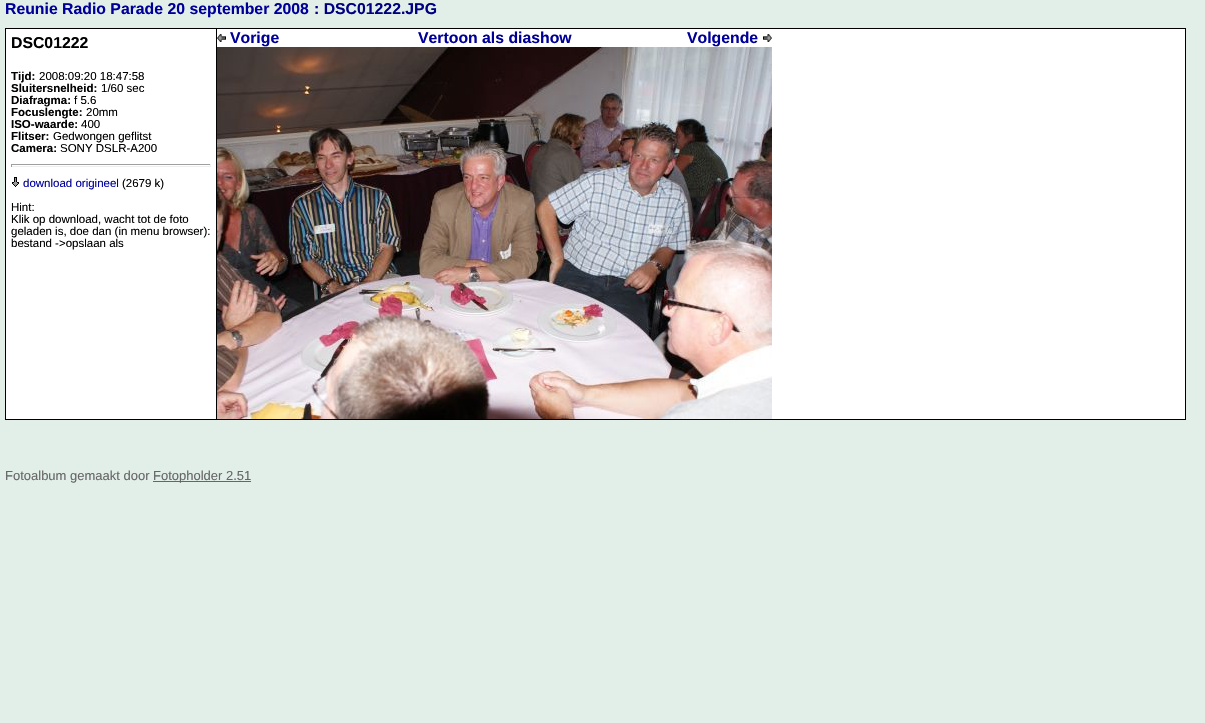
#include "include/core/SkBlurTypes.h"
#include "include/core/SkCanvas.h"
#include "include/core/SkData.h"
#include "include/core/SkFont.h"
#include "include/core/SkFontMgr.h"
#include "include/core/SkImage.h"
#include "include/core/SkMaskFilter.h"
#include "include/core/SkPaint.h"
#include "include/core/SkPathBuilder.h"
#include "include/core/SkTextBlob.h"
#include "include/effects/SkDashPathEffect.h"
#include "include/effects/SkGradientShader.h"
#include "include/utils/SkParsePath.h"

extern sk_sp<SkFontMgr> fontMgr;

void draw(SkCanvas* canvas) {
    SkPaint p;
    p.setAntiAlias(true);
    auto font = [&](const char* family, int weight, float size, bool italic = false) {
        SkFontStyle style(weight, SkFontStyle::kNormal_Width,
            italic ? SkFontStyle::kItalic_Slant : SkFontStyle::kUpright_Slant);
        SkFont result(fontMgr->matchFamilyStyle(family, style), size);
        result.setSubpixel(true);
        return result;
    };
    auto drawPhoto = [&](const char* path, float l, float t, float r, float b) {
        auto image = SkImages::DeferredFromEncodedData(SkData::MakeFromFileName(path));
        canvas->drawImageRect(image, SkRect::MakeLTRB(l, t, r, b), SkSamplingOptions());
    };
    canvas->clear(0xFFE2EFE9);
    auto font1 = font("Liberation Sans", 700, 15.8f);
    p.setColor(0xFF000099);
    canvas->drawString("Reunie Radio Parade 20 september 2008", 5, 14, font1, p);
    p.setColor(0xFF000080);
    canvas->drawString(": DSC01222.JPG", 314, 14, font1, p);
    p.setColor(0xFFFFFFFF);
    canvas->drawRect(SkRect::MakeLTRB(5.5f, 28.5f, 1185.5f, 419.5f), p);
    p.setStyle(SkPaint::kStroke_Style);
    p.setStrokeWidth(1);
    p.setColor(0xFF000000);
    canvas->drawRect(SkRect::MakeLTRB(5.5f, 28.5f, 1185.5f, 419.5f), p);
    p.setStyle(SkPaint::kFill_Style);
    canvas->drawRect(SkRect::MakeLTRB(216, 29, 217, 419), p);
    canvas->drawString("DSC01222", 11, 48, font1, p);
    auto font2 = font("Liberation Sans", 700, 11.5f);
    canvas->drawString("Tijd:", 11, 80, font2, p);
    auto font3 = font("Liberation Sans", 400, 11.5f);
    canvas->drawString("2008:09:20 18:47:58", 39, 80, font3, p);
    canvas->drawString("Sluitersnelheid:", 11, 92, font2, p);
    canvas->drawString("1/60 sec", 101, 92, font3, p);
    canvas->drawString("Diafragma:", 11, 104, font2, p);
    canvas->drawString("f 5.6", 74, 104, font3, p);
    canvas->drawString("Focuslengte:", 11, 116, font2, p);
    canvas->drawString("20mm", 86, 116, font3, p);
    canvas->drawString("ISO-waarde:", 11, 128, font2, p);
    canvas->drawString("400", 81, 128, font3, p);
    canvas->drawString("Flitser:", 11, 140, font2, p);
    canvas->drawString("Gedwongen geflitst", 53, 140, font3, p);
    canvas->drawString("Camera:", 11, 152, font2, p);
    canvas->drawString("SONY DSLR-A200", 60, 152, font3, p);
    {
        const struct { float l, t, r, b; SkColor color; } items[] = {
            {11, 164, 211, 165, 0xFF9F9F9F},
            {210, 164, 211, 167, 0xFFEEEEEE},
            {11, 166, 211, 167, 0xFFEEEEEE},
            {11, 164, 12, 167, 0xFF9F9F9F},
        };
        for (auto [l, t, r, b, color] : items) {
            p.setColor(color);
            canvas->drawRect(SkRect::MakeLTRB(l, t, r, b), p);
        }
    }
    drawPhoto("media/1.png", 12, 177, 19, 187);
    p.setColor(0xFF000099);
    canvas->drawString("download origineel", 23, 187, font3, p);
    p.setColor(0xFF000000);
    {
        const struct { const char* s; float x, y; } items[] = {
            {"(2679 k)", 122, 187},
            {"Hint:", 11, 211},
            {"Klik op download, wacht tot de foto", 11, 223},
            {"geladen is, doe dan (in menu browser):", 11, 235},
            {"bestand ->opslaan als", 11, 247},
        };
        for (auto [s, x, y] : items) {
            canvas->drawString(s, x, y, font3, p);
        }
    }
    drawPhoto("media/2.png", 217, 34, 226, 42);
    p.setColor(0xFF000099);
    {
        const struct { const char* s; float x, y; } items[] = {
            {"Vorige", 230, 43},
            {"Vertoon als diashow", 418, 43},
            {"Volgende", 687, 43},
        };
        for (auto [s, x, y] : items) {
            canvas->drawString(s, x, y, font1, p);
        }
    }
    drawPhoto("media/3.png", 763, 34, 772, 42);
    drawPhoto("media/4.png", 217, 47, 772, 419);
    auto font4 = font("Liberation Sans", 400, 13);
    p.setColor(0xFF666666);
    canvas->drawString("Fotoalbum gemaakt door", 5, 480, font4, p);
    canvas->drawRect(SkRect::MakeLTRB(153, 481, 251, 482), p);
    canvas->drawString("Fotopholder 2.51", 153, 480, font4, p);
}
